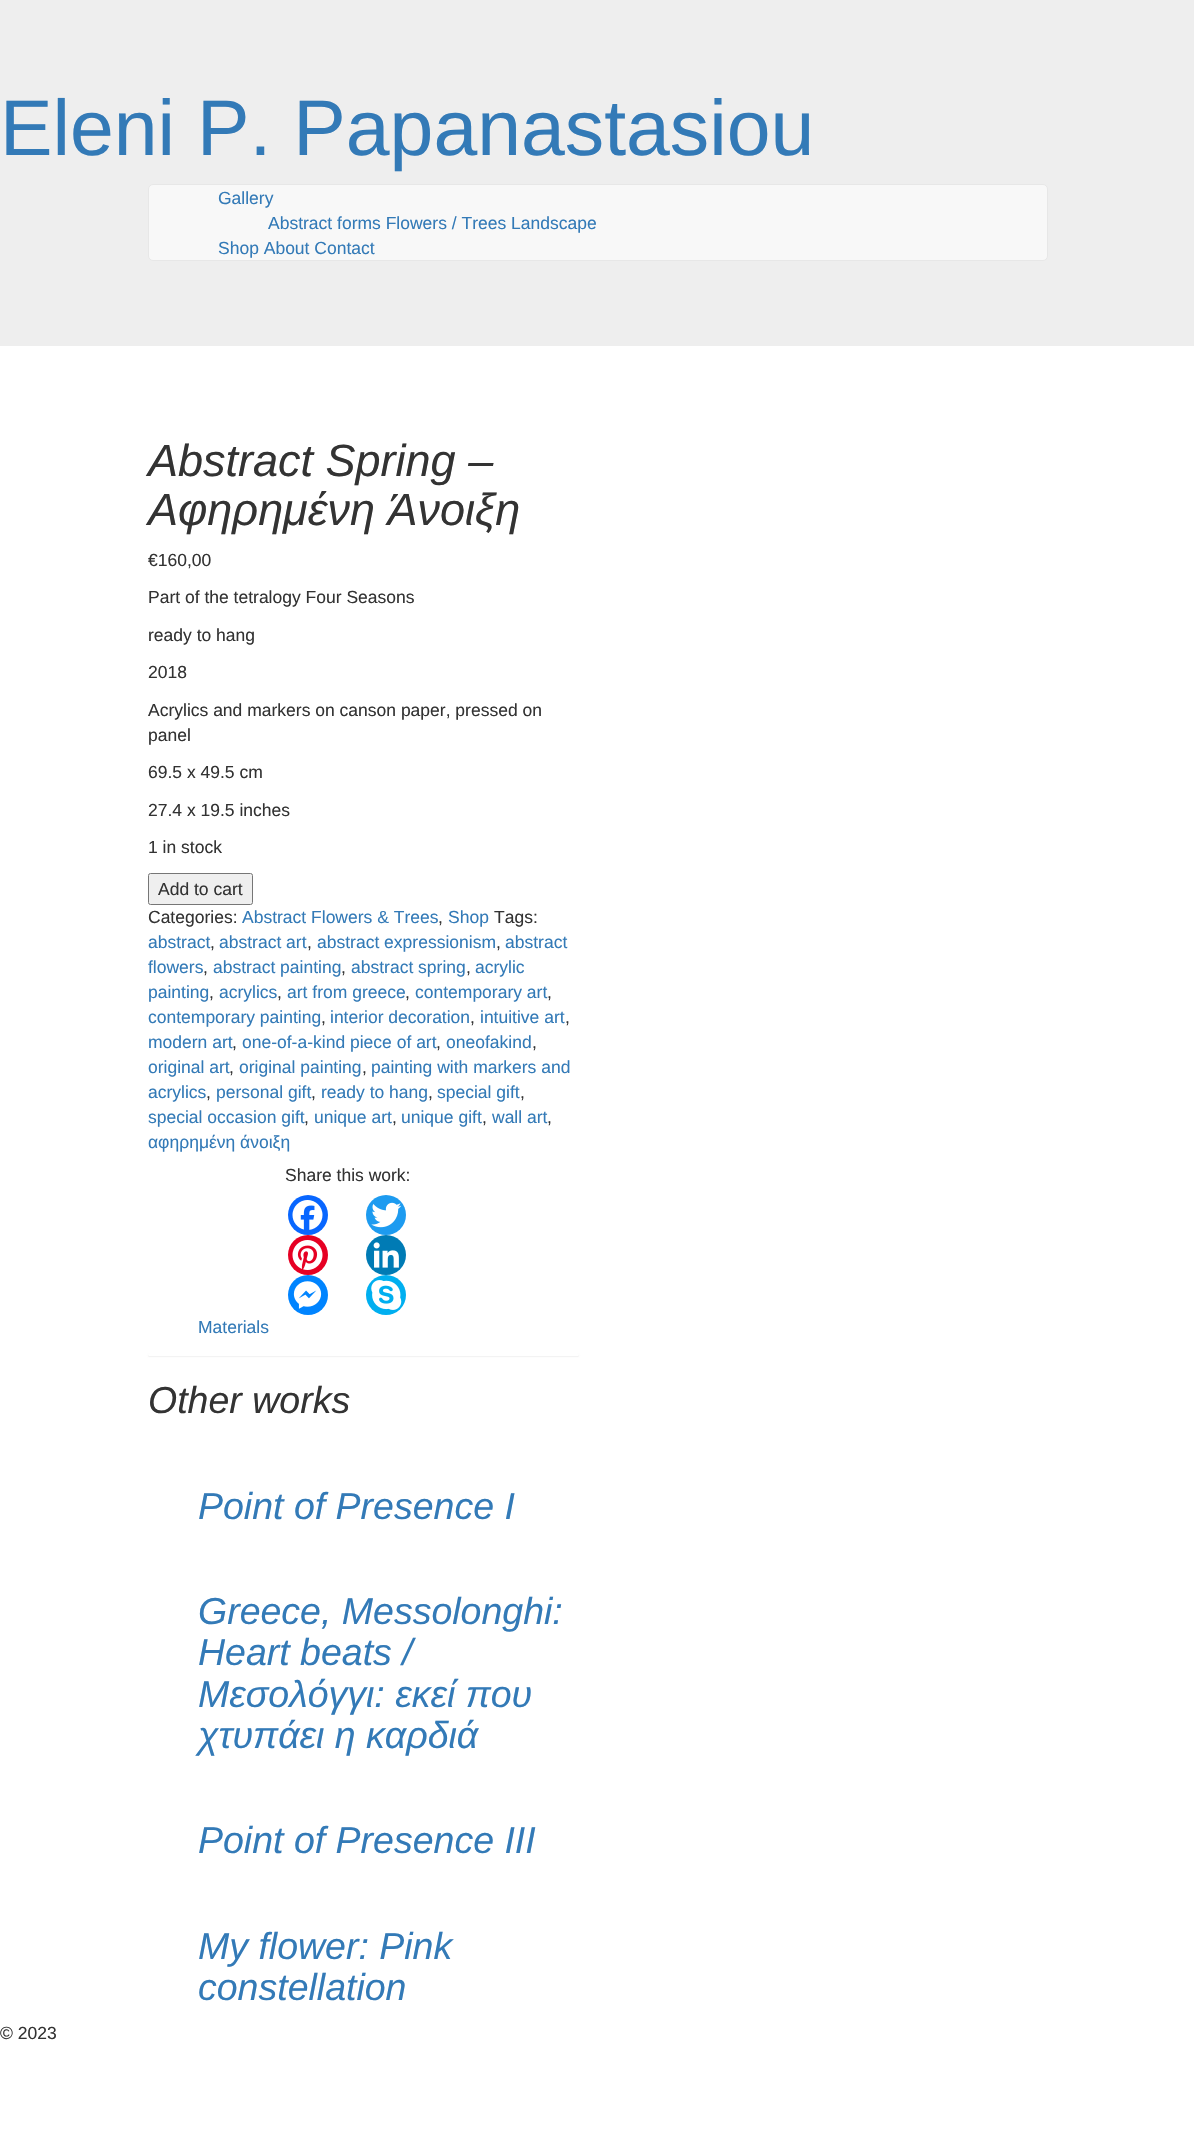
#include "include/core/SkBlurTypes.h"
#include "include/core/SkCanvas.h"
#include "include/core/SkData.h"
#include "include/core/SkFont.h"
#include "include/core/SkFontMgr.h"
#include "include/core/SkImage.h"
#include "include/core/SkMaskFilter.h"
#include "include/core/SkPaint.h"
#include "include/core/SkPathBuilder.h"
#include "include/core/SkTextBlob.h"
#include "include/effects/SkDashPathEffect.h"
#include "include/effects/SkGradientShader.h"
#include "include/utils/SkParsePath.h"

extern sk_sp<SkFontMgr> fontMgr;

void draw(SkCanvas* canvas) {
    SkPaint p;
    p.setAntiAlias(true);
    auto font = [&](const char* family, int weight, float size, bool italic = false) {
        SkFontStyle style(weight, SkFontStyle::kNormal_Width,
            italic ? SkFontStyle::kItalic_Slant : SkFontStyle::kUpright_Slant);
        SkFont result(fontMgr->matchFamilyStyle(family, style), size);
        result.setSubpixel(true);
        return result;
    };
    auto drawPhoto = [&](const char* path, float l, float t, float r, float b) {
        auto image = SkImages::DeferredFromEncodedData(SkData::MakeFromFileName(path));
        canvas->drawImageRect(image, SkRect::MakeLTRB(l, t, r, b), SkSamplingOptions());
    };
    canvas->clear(0xFFFFFFFF);
    p.setColor(0xFFEEEEEE);
    canvas->drawRect(SkRect::MakeLTRB(0, 0, 1194, 346), p);
    auto font1 = font("Liberation Sans", 400, 78.75f);
    p.setColor(0xFF337AB7);
    canvas->drawString("Eleni P. Papanastasiou", 0, 155, font1, p);
    p.setColor(0xFFF8F8F8);
    canvas->drawRoundRect(SkRect::MakeLTRB(148.5f, 184.5f, 1047.5f, 260.5f), 4.5f, 4.5f, p);
    p.setStyle(SkPaint::kStroke_Style);
    p.setStrokeWidth(1);
    p.setColor(0xFFE7E7E7);
    canvas->drawRoundRect(SkRect::MakeLTRB(148.5f, 184.5f, 1047.5f, 260.5f), 4.5f, 4.5f, p);
    auto font2 = font("Liberation Sans", 400, 17.5f);
    p.setStyle(SkPaint::kFill_Style);
    p.setColor(0xFF337AB7);
    {
        const struct { const char* s; float x, y; } items[] = {
            {"Gallery", 218, 204},
            {"Abstract forms Flowers / Trees Landscape", 268, 229},
            {"Shop About Contact", 218, 254},
        };
        for (auto [s, x, y] : items) {
            canvas->drawString(s, x, y, font2, p);
        }
    }
    auto font3 = font("Liberation Sans", 400, 45, true);
    p.setColor(0xFF333333);
    canvas->drawString("Abstract Spring –", 148, 476, font3, p);
    canvas->drawString("Αφηρημένη Άνοιξη", 148, 525, font3, p);
    {
        const struct { const char* s; float x, y; } items[] = {
            {"€160,00", 148, 566},
            {"Part of the tetralogy Four Seasons", 148, 603},
            {"ready to hang", 148, 641},
            {"2018", 148, 678},
            {"Acrylics and markers on canson paper, pressed on", 148, 716},
            {"panel", 148, 741},
            {"69.5 x 49.5 cm", 148, 778},
            {"27.4 x 19.5 inches", 148, 816},
            {"1 in stock", 148, 853},
        };
        for (auto [s, x, y] : items) {
            canvas->drawString(s, x, y, font2, p);
        }
    }
    p.setColor(0xFFEFEFEF);
    canvas->drawRoundRect(SkRect::MakeLTRB(148.5f, 873.5f, 252.5f, 904.5f), 2, 2, p);
    p.setStyle(SkPaint::kStroke_Style);
    p.setColor(0xFF767676);
    canvas->drawRoundRect(SkRect::MakeLTRB(148.5f, 873.5f, 252.5f, 904.5f), 2, 2, p);
    p.setStyle(SkPaint::kFill_Style);
    p.setColor(0xFF333333);
    canvas->drawString("Add to cart", 158, 895, font2, p);
    canvas->drawString("Categories:", 148, 923, font2, p);
    p.setColor(0xFF337AB7);
    canvas->drawString("Abstract Flowers & Trees", 242, 923, font2, p);
    p.setColor(0xFF333333);
    canvas->drawString(",", 438, 923, font2, p);
    p.setColor(0xFF337AB7);
    canvas->drawString("Shop", 448, 923, font2, p);
    p.setColor(0xFF333333);
    canvas->drawString("Tags:", 494, 923, font2, p);
    p.setColor(0xFF337AB7);
    canvas->drawString("abstract", 148, 948, font2, p);
    p.setColor(0xFF333333);
    canvas->drawString(",", 210, 948, font2, p);
    p.setColor(0xFF337AB7);
    canvas->drawString("abstract art", 219, 948, font2, p);
    p.setColor(0xFF333333);
    canvas->drawString(",", 307, 948, font2, p);
    p.setColor(0xFF337AB7);
    canvas->drawString("abstract expressionism", 317, 948, font2, p);
    p.setColor(0xFF333333);
    canvas->drawString(",", 496, 948, font2, p);
    p.setColor(0xFF337AB7);
    canvas->drawString("abstract", 505, 948, font2, p);
    canvas->drawString("flowers", 148, 973, font2, p);
    p.setColor(0xFF333333);
    canvas->drawString(",", 203, 973, font2, p);
    p.setColor(0xFF337AB7);
    canvas->drawString("abstract painting", 213, 973, font2, p);
    p.setColor(0xFF333333);
    canvas->drawString(",", 341, 973, font2, p);
    p.setColor(0xFF337AB7);
    canvas->drawString("abstract spring", 351, 973, font2, p);
    p.setColor(0xFF333333);
    canvas->drawString(",", 466, 973, font2, p);
    p.setColor(0xFF337AB7);
    canvas->drawString("acrylic", 475, 973, font2, p);
    canvas->drawString("painting", 148, 998, font2, p);
    p.setColor(0xFF333333);
    canvas->drawString(",", 209, 998, font2, p);
    p.setColor(0xFF337AB7);
    canvas->drawString("acrylics", 219, 998, font2, p);
    p.setColor(0xFF333333);
    canvas->drawString(",", 277, 998, font2, p);
    p.setColor(0xFF337AB7);
    canvas->drawString("art from greece", 287, 998, font2, p);
    p.setColor(0xFF333333);
    canvas->drawString(",", 405, 998, font2, p);
    p.setColor(0xFF337AB7);
    canvas->drawString("contemporary art", 415, 998, font2, p);
    p.setColor(0xFF333333);
    canvas->drawString(",", 547, 998, font2, p);
    p.setColor(0xFF337AB7);
    canvas->drawString("contemporary painting", 148, 1023, font2, p);
    p.setColor(0xFF333333);
    canvas->drawString(",", 321, 1023, font2, p);
    p.setColor(0xFF337AB7);
    canvas->drawString("interior decoration", 330, 1023, font2, p);
    p.setColor(0xFF333333);
    canvas->drawString(",", 470, 1023, font2, p);
    p.setColor(0xFF337AB7);
    canvas->drawString("intuitive art", 480, 1023, font2, p);
    p.setColor(0xFF333333);
    canvas->drawString(",", 565, 1023, font2, p);
    p.setColor(0xFF337AB7);
    canvas->drawString("modern art", 148, 1048, font2, p);
    p.setColor(0xFF333333);
    canvas->drawString(",", 232, 1048, font2, p);
    p.setColor(0xFF337AB7);
    canvas->drawString("one-of-a-kind piece of art", 242, 1048, font2, p);
    p.setColor(0xFF333333);
    canvas->drawString(",", 436, 1048, font2, p);
    p.setColor(0xFF337AB7);
    canvas->drawString("oneofakind", 446, 1048, font2, p);
    p.setColor(0xFF333333);
    canvas->drawString(",", 532, 1048, font2, p);
    p.setColor(0xFF337AB7);
    canvas->drawString("original art", 148, 1073, font2, p);
    p.setColor(0xFF333333);
    canvas->drawString(",", 229, 1073, font2, p);
    p.setColor(0xFF337AB7);
    canvas->drawString("original painting", 239, 1073, font2, p);
    p.setColor(0xFF333333);
    canvas->drawString(",", 362, 1073, font2, p);
    p.setColor(0xFF337AB7);
    canvas->drawString("painting with markers and", 371, 1073, font2, p);
    canvas->drawString("acrylics", 148, 1098, font2, p);
    p.setColor(0xFF333333);
    canvas->drawString(",", 206, 1098, font2, p);
    p.setColor(0xFF337AB7);
    canvas->drawString("personal gift", 216, 1098, font2, p);
    p.setColor(0xFF333333);
    canvas->drawString(",", 311, 1098, font2, p);
    p.setColor(0xFF337AB7);
    canvas->drawString("ready to hang", 321, 1098, font2, p);
    p.setColor(0xFF333333);
    canvas->drawString(",", 428, 1098, font2, p);
    p.setColor(0xFF337AB7);
    canvas->drawString("special gift", 437, 1098, font2, p);
    p.setColor(0xFF333333);
    canvas->drawString(",", 520, 1098, font2, p);
    p.setColor(0xFF337AB7);
    canvas->drawString("special occasion gift", 148, 1123, font2, p);
    p.setColor(0xFF333333);
    canvas->drawString(",", 304, 1123, font2, p);
    p.setColor(0xFF337AB7);
    canvas->drawString("unique art", 314, 1123, font2, p);
    p.setColor(0xFF333333);
    canvas->drawString(",", 392, 1123, font2, p);
    p.setColor(0xFF337AB7);
    canvas->drawString("unique gift", 401, 1123, font2, p);
    p.setColor(0xFF333333);
    canvas->drawString(",", 482, 1123, font2, p);
    p.setColor(0xFF337AB7);
    canvas->drawString("wall art", 492, 1123, font2, p);
    p.setColor(0xFF333333);
    canvas->drawString(",", 547, 1123, font2, p);
    p.setColor(0xFF337AB7);
    canvas->drawString("αφηρημένη άνοιξη", 148, 1148, font2, p);
    p.setColor(0xFF333333);
    canvas->drawString("Share this work:", 285, 1181, font2, p);
    p.setColor(0xFF0866FF);
    canvas->drawCircle(308, 1215, 20, p);
    drawPhoto("media/1.png", 292, 1200, 323, 1230);
    p.setColor(0xFF1D9BF0);
    canvas->drawCircle(386, 1215, 20, p);
    drawPhoto("media/2.png", 371, 1202, 402, 1228);
    p.setColor(0xFFE60023);
    canvas->drawCircle(308, 1255, 20, p);
    drawPhoto("media/3.png", 292, 1240, 323, 1270);
    p.setColor(0xFF007BB5);
    canvas->drawCircle(386, 1255, 20, p);
    drawPhoto("media/4.png", 373, 1242, 399, 1268);
    p.setColor(0xFF0084FF);
    canvas->drawCircle(308, 1295, 20, p);
    drawPhoto("media/5.png", 293, 1281, 322, 1309);
    p.setColor(0xFF00AFF0);
    canvas->drawCircle(386, 1295, 20, p);
    drawPhoto("media/6.png", 371, 1280, 402, 1310);
    p.setColor(0xFF337AB7);
    canvas->drawString("Materials", 198, 1333, font2, p);
    p.setColor(0x0D000000);
    p.setMaskFilter(SkMaskFilter::MakeBlur(kNormal_SkBlurStyle, 0.5f));
    canvas->drawRoundRect(SkRect::MakeLTRB(148, 1354, 579, 1357), 1.5f, 1.5f, p);
    p.setMaskFilter(nullptr);
    p.setColor(0xFFFFFFFF);
    canvas->drawRoundRect(SkRect::MakeLTRB(148, 1353, 579, 1356), 1.5f, 1.5f, p);
    auto font4 = font("Liberation Sans", 400, 37.5f, true);
    p.setColor(0xFF333333);
    canvas->drawString("Other works", 148, 1413, font4, p);
    p.setColor(0xFF337AB7);
    {
        const struct { const char* s; float x, y; } items[] = {
            {"Point of Presence I", 198, 1519},
            {"Greece, Messolonghi:", 198, 1624},
            {"Heart beats /", 198, 1665},
            {"Μεσολόγγι: εκεί που", 198, 1707},
            {"χτυπάει η καρδιά", 198, 1748},
            {"Point of Presence III", 198, 1853},
            {"My flower: Pink", 198, 1959},
            {"constellation", 198, 2000},
        };
        for (auto [s, x, y] : items) {
            canvas->drawString(s, x, y, font4, p);
        }
    }
    p.setColor(0xFF333333);
    canvas->drawString("© 2023", 0, 2039, font2, p);
}
